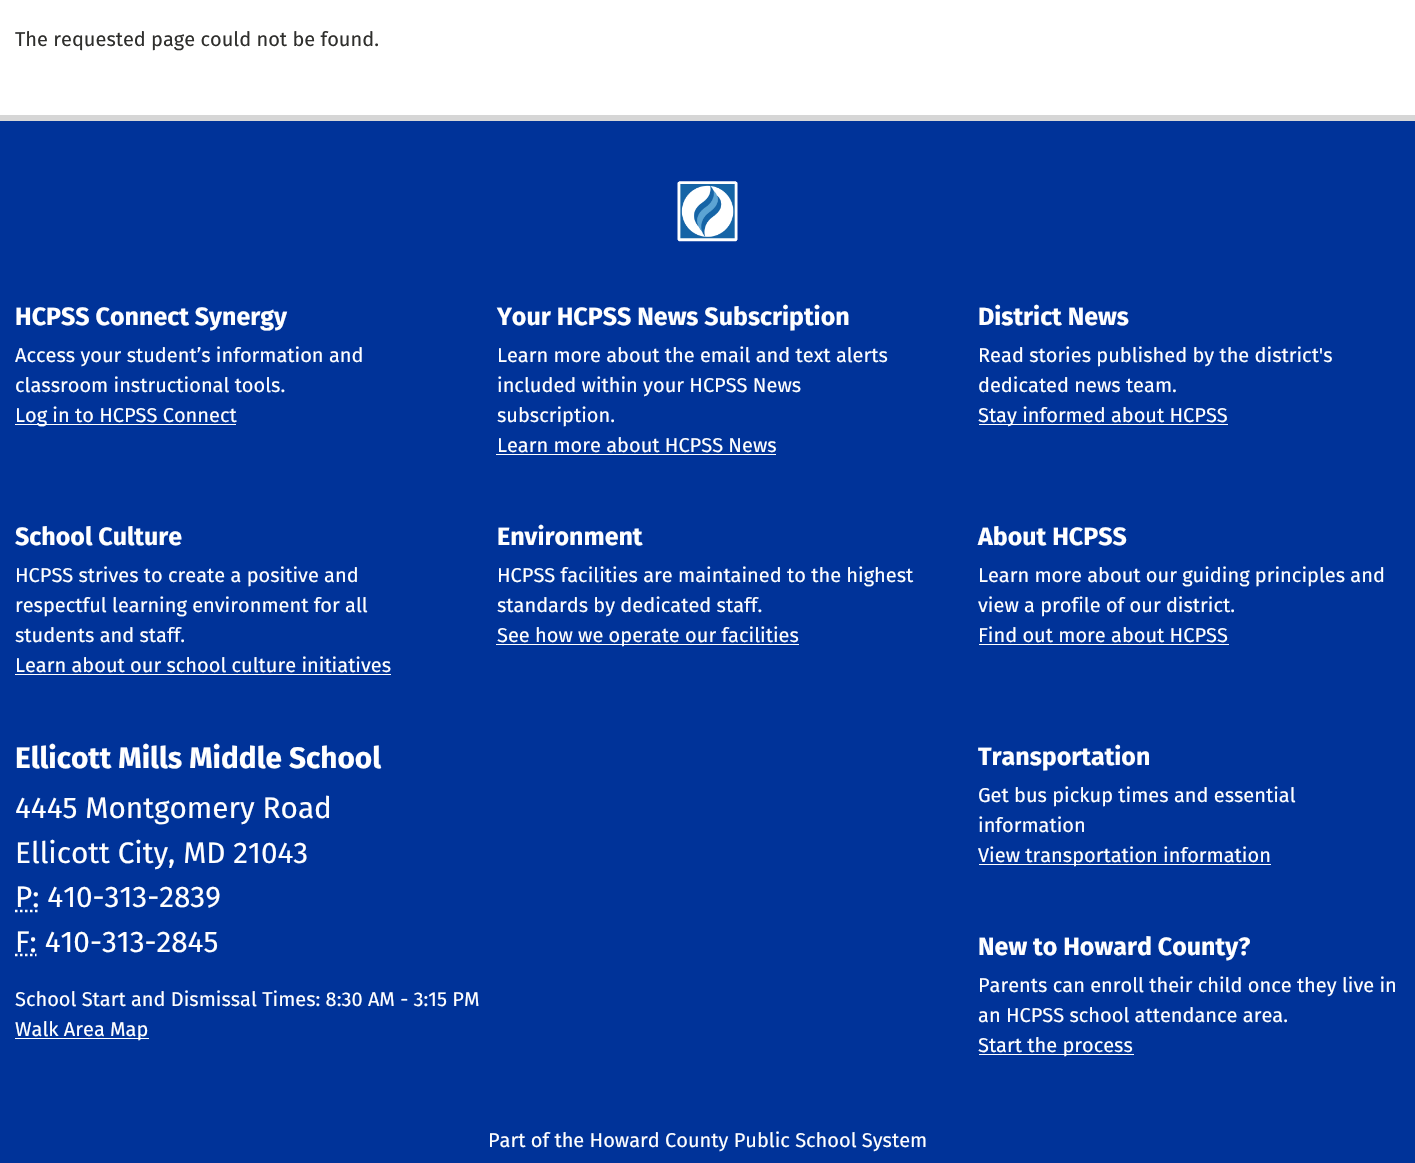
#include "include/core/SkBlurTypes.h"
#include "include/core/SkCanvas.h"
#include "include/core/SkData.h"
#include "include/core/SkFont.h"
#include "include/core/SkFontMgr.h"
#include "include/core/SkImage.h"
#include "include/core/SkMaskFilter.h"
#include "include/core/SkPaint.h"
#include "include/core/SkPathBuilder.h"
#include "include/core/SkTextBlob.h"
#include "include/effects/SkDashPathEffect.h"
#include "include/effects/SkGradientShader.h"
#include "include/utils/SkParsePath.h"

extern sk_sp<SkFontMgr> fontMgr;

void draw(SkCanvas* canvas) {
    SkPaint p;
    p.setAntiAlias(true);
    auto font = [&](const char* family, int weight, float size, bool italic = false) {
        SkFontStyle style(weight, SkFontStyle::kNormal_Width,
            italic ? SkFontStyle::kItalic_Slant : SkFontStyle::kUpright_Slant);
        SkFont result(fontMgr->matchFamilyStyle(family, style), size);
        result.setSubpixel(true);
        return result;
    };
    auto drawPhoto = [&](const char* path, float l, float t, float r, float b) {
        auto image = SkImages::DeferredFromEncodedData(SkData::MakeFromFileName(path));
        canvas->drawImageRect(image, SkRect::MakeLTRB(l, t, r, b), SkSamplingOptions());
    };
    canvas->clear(0xFFFFFFFF);
    auto font1 = font("Fira Sans", 400, 20);
    p.setColor(0xFF2F2F2D);
    canvas->drawString("The requested page could not be found.", 15, 46, font1, p);
    p.setColor(0xFF003399);
    canvas->drawRect(SkRect::MakeLTRB(0, 121, 1415, 1163), p);
    p.setColor(0xFFD6D6D6);
    canvas->drawRect(SkRect::MakeLTRB(0, 115, 1415, 121), p);
    drawPhoto("media/1.png", 677, 181, 738, 242);
    auto font2 = font("Fira Sans", 700, 25);
    p.setColor(0xFFFFFFFF);
    canvas->drawString("HCPSS Connect Synergy", 15, 325, font2, p);
    canvas->drawString("Access your student’s information and", 15, 362, font1, p);
    canvas->drawString("classroom instructional tools.", 15, 392, font1, p);
    canvas->drawRect(SkRect::MakeLTRB(15, 424, 236, 425), p);
    canvas->drawString("Log in to HCPSS Connect", 15, 422, font1, p);
    canvas->drawString("Your HCPSS News Subscription", 497, 325, font2, p);
    {
        const struct { const char* s; float x, y; } items[] = {
            {"Learn more about the email and text alerts", 497, 362},
            {"included within your HCPSS News", 497, 392},
            {"subscription.", 497, 422},
            {"Learn more about HCPSS News", 497, 452},
        };
        for (auto [s, x, y] : items) {
            canvas->drawString(s, x, y, font1, p);
        }
    }
    canvas->drawRect(SkRect::MakeLTRB(496, 454, 776, 455), p);
    canvas->drawString("District News", 978, 325, font2, p);
    canvas->drawString("Read stories published by the district's", 978, 362, font1, p);
    canvas->drawString("dedicated news team.", 978, 392, font1, p);
    canvas->drawRect(SkRect::MakeLTRB(979, 424, 1228, 425), p);
    canvas->drawString("Stay informed about HCPSS", 978, 422, font1, p);
    canvas->drawString("School Culture", 15, 545, font2, p);
    {
        const struct { const char* s; float x, y; } items[] = {
            {"HCPSS strives to create a positive and", 15, 582},
            {"respectful learning environment for all", 15, 612},
            {"students and staff.", 15, 642},
            {"Learn about our school culture initiatives", 15, 672},
        };
        for (auto [s, x, y] : items) {
            canvas->drawString(s, x, y, font1, p);
        }
    }
    canvas->drawRect(SkRect::MakeLTRB(15, 674, 391, 675), p);
    canvas->drawString("Environment", 497, 545, font2, p);
    canvas->drawString("HCPSS facilities are maintained to the highest", 497, 582, font1, p);
    canvas->drawString("standards by dedicated staff.", 497, 612, font1, p);
    canvas->drawRect(SkRect::MakeLTRB(496, 644, 799, 645), p);
    canvas->drawString("See how we operate our facilities", 497, 642, font1, p);
    canvas->drawString("About HCPSS", 978, 545, font2, p);
    {
        const struct { const char* s; float x, y; } items[] = {
            {"Learn more about our guiding principles and", 978, 582},
            {"view a profile of our district.", 978, 612},
            {"Find out more about HCPSS", 978, 642},
        };
        for (auto [s, x, y] : items) {
            canvas->drawString(s, x, y, font1, p);
        }
    }
    canvas->drawRect(SkRect::MakeLTRB(979, 644, 1229, 645), p);
    auto font3 = font("Fira Sans", 700, 29.75f);
    canvas->drawString("Ellicott Mills Middle School", 15, 768, font3, p);
    auto font4 = font("Fira Sans", 400, 29.75f);
    {
        const struct { const char* s; float x, y; } items[] = {
            {"4445 Montgomery Road", 15, 818},
            {"Ellicott City, MD 21043", 15, 863},
            {"P: 410-313-2839", 15, 907},
        };
        for (auto [s, x, y] : items) {
            canvas->drawString(s, x, y, font4, p);
        }
    }
    p.setStyle(SkPaint::kStroke_Style);
    p.setStrokeWidth(2.5f);
    p.setPathEffect(SkDashPathEffect::Make({{2.5f, 2.5f}}, 0));
    canvas->drawPath(SkPathBuilder().moveTo(15, 911).lineTo(39.5f, 911).detach(), p);
    p.setPathEffect(nullptr);
    p.setStyle(SkPaint::kFill_Style);
    canvas->drawString("F: 410-313-2845", 15, 952, font4, p);
    p.setStyle(SkPaint::kStroke_Style);
    p.setPathEffect(SkDashPathEffect::Make({{2.5f, 2.5f}}, 0));
    canvas->drawPath(SkPathBuilder().moveTo(15, 955).lineTo(36.5f, 955).detach(), p);
    p.setPathEffect(nullptr);
    p.setStyle(SkPaint::kFill_Style);
    canvas->drawString("School Start and Dismissal Times: 8:30 AM - 3:15 PM", 15, 1006, font1, p);
    canvas->drawRect(SkRect::MakeLTRB(15, 1038, 149, 1039), p);
    canvas->drawString("Walk Area Map", 15, 1036, font1, p);
    canvas->drawString("Transportation", 978, 765, font2, p);
    canvas->drawString("Get bus pickup times and essential", 978, 802, font1, p);
    canvas->drawString("information", 978, 832, font1, p);
    canvas->drawRect(SkRect::MakeLTRB(979, 864, 1271, 865), p);
    canvas->drawString("View transportation information", 978, 862, font1, p);
    canvas->drawString("New to Howard County?", 978, 955, font2, p);
    canvas->drawString("Parents can enroll their child once they live in", 978, 992, font1, p);
    canvas->drawString("an HCPSS school attendance area.", 978, 1022, font1, p);
    canvas->drawRect(SkRect::MakeLTRB(979, 1054, 1134, 1055), p);
    canvas->drawString("Start the process", 978, 1052, font1, p);
    canvas->drawString("Part of the Howard County Public School System", 488, 1147, font1, p);
}
